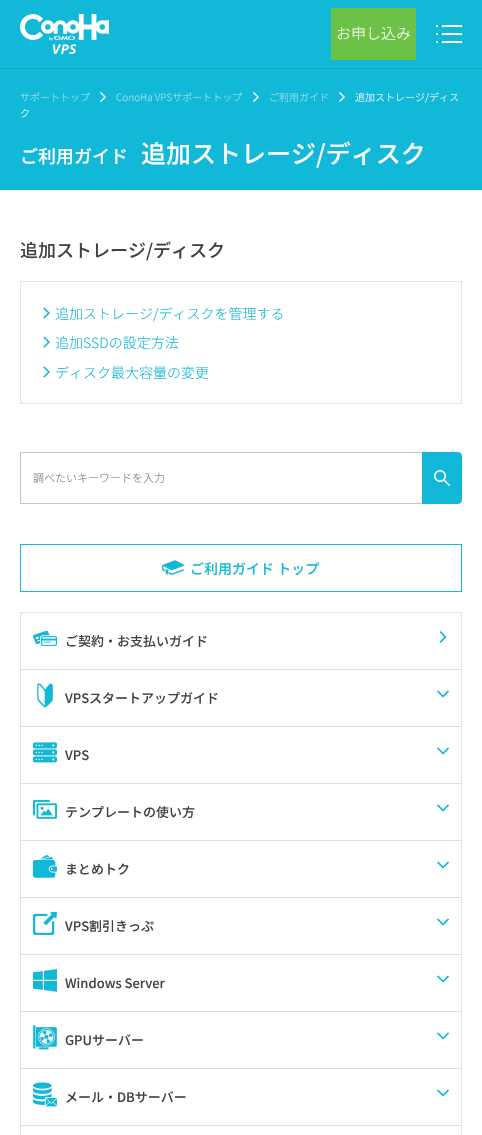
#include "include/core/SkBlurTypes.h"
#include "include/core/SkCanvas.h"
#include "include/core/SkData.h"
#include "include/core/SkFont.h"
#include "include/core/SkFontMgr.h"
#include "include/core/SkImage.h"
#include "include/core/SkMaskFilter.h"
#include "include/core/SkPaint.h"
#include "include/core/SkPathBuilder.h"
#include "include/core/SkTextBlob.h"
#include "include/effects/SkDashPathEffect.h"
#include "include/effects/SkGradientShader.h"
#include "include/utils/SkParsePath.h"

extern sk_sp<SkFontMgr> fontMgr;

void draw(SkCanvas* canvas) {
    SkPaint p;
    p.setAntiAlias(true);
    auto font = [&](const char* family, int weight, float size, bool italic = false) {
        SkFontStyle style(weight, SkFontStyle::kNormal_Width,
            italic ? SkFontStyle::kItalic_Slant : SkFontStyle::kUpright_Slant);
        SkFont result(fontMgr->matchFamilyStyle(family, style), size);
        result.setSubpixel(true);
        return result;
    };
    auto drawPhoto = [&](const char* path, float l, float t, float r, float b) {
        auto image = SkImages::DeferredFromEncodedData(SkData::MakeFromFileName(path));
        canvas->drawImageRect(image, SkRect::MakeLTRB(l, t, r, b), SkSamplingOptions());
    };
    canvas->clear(0xFFFFFFFF);
    p.setColor(0xFF12B8D7);
    canvas->drawRect(SkRect::MakeLTRB(0, 0, 482, 68), p);
    p.setColor(0xFF10A6C2);
    canvas->drawRect(SkRect::MakeLTRB(0, 68, 482, 69), p);
    drawPhoto("media/1.png", 20, 14, 109, 54);
    p.setColor(0xFF6CC246);
    canvas->drawRect(SkRect::MakeLTRB(331, 8, 416, 60), p);
    auto font1 = font("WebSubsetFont", 300, 15);
    p.setColor(0xFFFFFFFF);
    canvas->drawString("お申し込み", 336, 39, font1, p);
    {
        const struct { float l, t, r, b; SkColor color; } items[] = {
            {442, 25, 462, 27, 0xFFFFFFFF},
            {436, 25, 438, 27, 0xFFFFFFFF},
            {442, 33, 462, 35, 0xFFFFFFFF},
            {436, 33, 438, 35, 0xFFFFFFFF},
            {442, 41, 462, 43, 0xFFFFFFFF},
            {436, 41, 438, 43, 0xFFFFFFFF},
            {0, 69, 482, 190, 0xFF12B8D7},
        };
        for (auto [l, t, r, b, color] : items) {
            p.setColor(color);
            canvas->drawRect(SkRect::MakeLTRB(l, t, r, b), p);
        }
    }
    auto font2 = font("WebSubsetFont", 300, 10);
    p.setColor(0xFFA0E3EF);
    canvas->drawString("サポートトップ", 20, 101, font2, p);
    drawPhoto("media/2.png", 339, 92, 345, 102);
    p.setColor(0xFFFFFFFF);
    canvas->drawString("追加ストレージ/ディス", 355, 101, font2, p);
    canvas->drawString("ク", 20, 117, font2, p);
    drawPhoto("media/2.png", 100, 92, 106, 102);
    p.setColor(0xFFA0E3EF);
    canvas->drawString("ConoHa VPSサポートトップ", 116, 101, font2, p);
    drawPhoto("media/2.png", 253, 92, 259, 102);
    canvas->drawString("ご利用ガイド", 269, 101, font2, p);
    auto font3 = font("WebSubsetFont", 500, 18);
    p.setColor(0xFFFFFFFF);
    canvas->drawString("ご利用ガイド", 20, 163, font3, p);
    auto font4 = font("WebSubsetFont", 500, 25);
    canvas->drawString("追加ストレージ/ディスク", 141, 163, font4, p);
    p.setColor(0xFF414141);
    canvas->drawString("追加ストレージ/ディスク", 20, 257, font3, p);
    p.setStyle(SkPaint::kStroke_Style);
    p.setStrokeWidth(1);
    p.setColor(0xFFE4E4E4);
    canvas->drawRect(SkRect::MakeLTRB(20.5f, 281.5f, 461.5f, 403.5f), p);
    drawPhoto("media/3.png", 43, 307, 50, 319);
    auto font5 = font("WebSubsetFont", 300, 14);
    p.setStyle(SkPaint::kFill_Style);
    p.setColor(0xFF12B8D7);
    canvas->drawString("追加ストレージ/ディスクを管理する", 55, 319, font5, p);
    drawPhoto("media/4.png", 43, 336, 50, 348);
    canvas->drawString("追加SSDの設定方法", 55, 348, font5, p);
    drawPhoto("media/5.png", 43, 366, 50, 378);
    canvas->drawString("ディスク最大容量の変更", 55, 378, font5, p);
    {
        const struct { float l, t, r, b; SkColor color; } items[] = {
            {20, 452, 422, 453, 0xFFC6C6C6},
            {20, 503, 422, 504, 0xFFC6C6C6},
            {20, 452, 21, 504, 0xFFC6C6C6},
        };
        for (auto [l, t, r, b, color] : items) {
            p.setColor(color);
            canvas->drawRect(SkRect::MakeLTRB(l, t, r, b), p);
        }
    }
    auto font6 = font("WebSubsetFont", 300, 11);
    p.setColor(0xFF757575);
    canvas->drawString("調べたいキーワードを入力", 33, 482, font6, p);
    p.setColor(0xFF12B8D7);
    canvas->drawPath(SkPathBuilder().moveTo(422, 452).lineTo(458, 452).cubicTo(460, 452, 462, 454, 462, 456).lineTo(462, 500).cubicTo(462, 502, 460, 504, 458, 504).lineTo(422, 504).close().detach(), p);
    drawPhoto("media/6.png", 434, 470, 450, 486);
    p.setStyle(SkPaint::kStroke_Style);
    canvas->drawRect(SkRect::MakeLTRB(20.5f, 544.5f, 461.5f, 591.5f), p);
    drawPhoto("media/7.png", 161, 560, 185, 576);
    auto font7 = font("WebSubsetFont", 500, 14);
    p.setStyle(SkPaint::kFill_Style);
    canvas->drawString("ご利用ガイド トップ", 190, 574, font7, p);
    p.setStyle(SkPaint::kStroke_Style);
    p.setColor(0xFFE4E4E4);
    canvas->drawRect(SkRect::MakeLTRB(20.5f, 612.5f, 461.5f, 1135.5f), p);
    drawPhoto("media/8.png", 33, 630, 57, 646);
    auto font8 = font("WebSubsetFont", 500, 13);
    p.setStyle(SkPaint::kFill_Style);
    p.setColor(0xFF414141);
    canvas->drawString("ご契約・お支払いガイド", 65, 646, font8, p);
    drawPhoto("media/9.png", 439, 631, 447, 643);
    p.setColor(0xFFDFDFDF);
    canvas->drawRect(SkRect::MakeLTRB(21, 669, 461, 670), p);
    drawPhoto("media/10.png", 37, 683, 53, 708);
    p.setColor(0xFF414141);
    canvas->drawString("VPSスタートアップガイド", 65, 703, font8, p);
    drawPhoto("media/11.png", 437, 690, 449, 698);
    p.setColor(0xFFDFDFDF);
    canvas->drawRect(SkRect::MakeLTRB(21, 726, 461, 727), p);
    drawPhoto("media/12.png", 33, 742, 57, 763);
    p.setColor(0xFF414141);
    canvas->drawString("VPS", 65, 760, font8, p);
    drawPhoto("media/11.png", 437, 747, 449, 755);
    p.setColor(0xFFDFDFDF);
    canvas->drawRect(SkRect::MakeLTRB(21, 783, 461, 784), p);
    drawPhoto("media/13.png", 33, 800, 57, 819);
    p.setColor(0xFF414141);
    canvas->drawString("テンプレートの使い方", 65, 817, font8, p);
    drawPhoto("media/11.png", 437, 804, 449, 812);
    p.setColor(0xFFDFDFDF);
    canvas->drawRect(SkRect::MakeLTRB(21, 840, 461, 841), p);
    drawPhoto("media/14.png", 33, 855, 57, 878);
    p.setColor(0xFF414141);
    canvas->drawString("まとめトク", 65, 874, font8, p);
    drawPhoto("media/11.png", 437, 861, 449, 869);
    p.setColor(0xFFDFDFDF);
    canvas->drawRect(SkRect::MakeLTRB(21, 897, 461, 898), p);
    drawPhoto("media/15.png", 33, 911, 57, 935);
    p.setColor(0xFF414141);
    canvas->drawString("VPS割引きっぷ", 65, 931, font8, p);
    drawPhoto("media/11.png", 437, 918, 449, 926);
    p.setColor(0xFFDFDFDF);
    canvas->drawRect(SkRect::MakeLTRB(21, 954, 461, 955), p);
    drawPhoto("media/16.png", 33, 969, 57, 992);
    p.setColor(0xFF414141);
    canvas->drawString("Windows Server", 65, 988, font8, p);
    drawPhoto("media/11.png", 437, 975, 449, 983);
    p.setColor(0xFFDFDFDF);
    canvas->drawRect(SkRect::MakeLTRB(21, 1011, 461, 1012), p);
    drawPhoto("media/17.png", 33, 1025, 57, 1050);
    p.setColor(0xFF414141);
    canvas->drawString("GPUサーバー", 65, 1045, font8, p);
    drawPhoto("media/11.png", 437, 1032, 449, 1040);
    p.setColor(0xFFDFDFDF);
    canvas->drawRect(SkRect::MakeLTRB(21, 1068, 461, 1069), p);
    drawPhoto("media/18.png", 33, 1082, 57, 1107);
    p.setColor(0xFF414141);
    canvas->drawString("メール・DBサーバー", 65, 1102, font8, p);
    drawPhoto("media/11.png", 437, 1089, 449, 1097);
    p.setColor(0xFFDFDFDF);
    canvas->drawRect(SkRect::MakeLTRB(21, 1125, 461, 1126), p);
}
